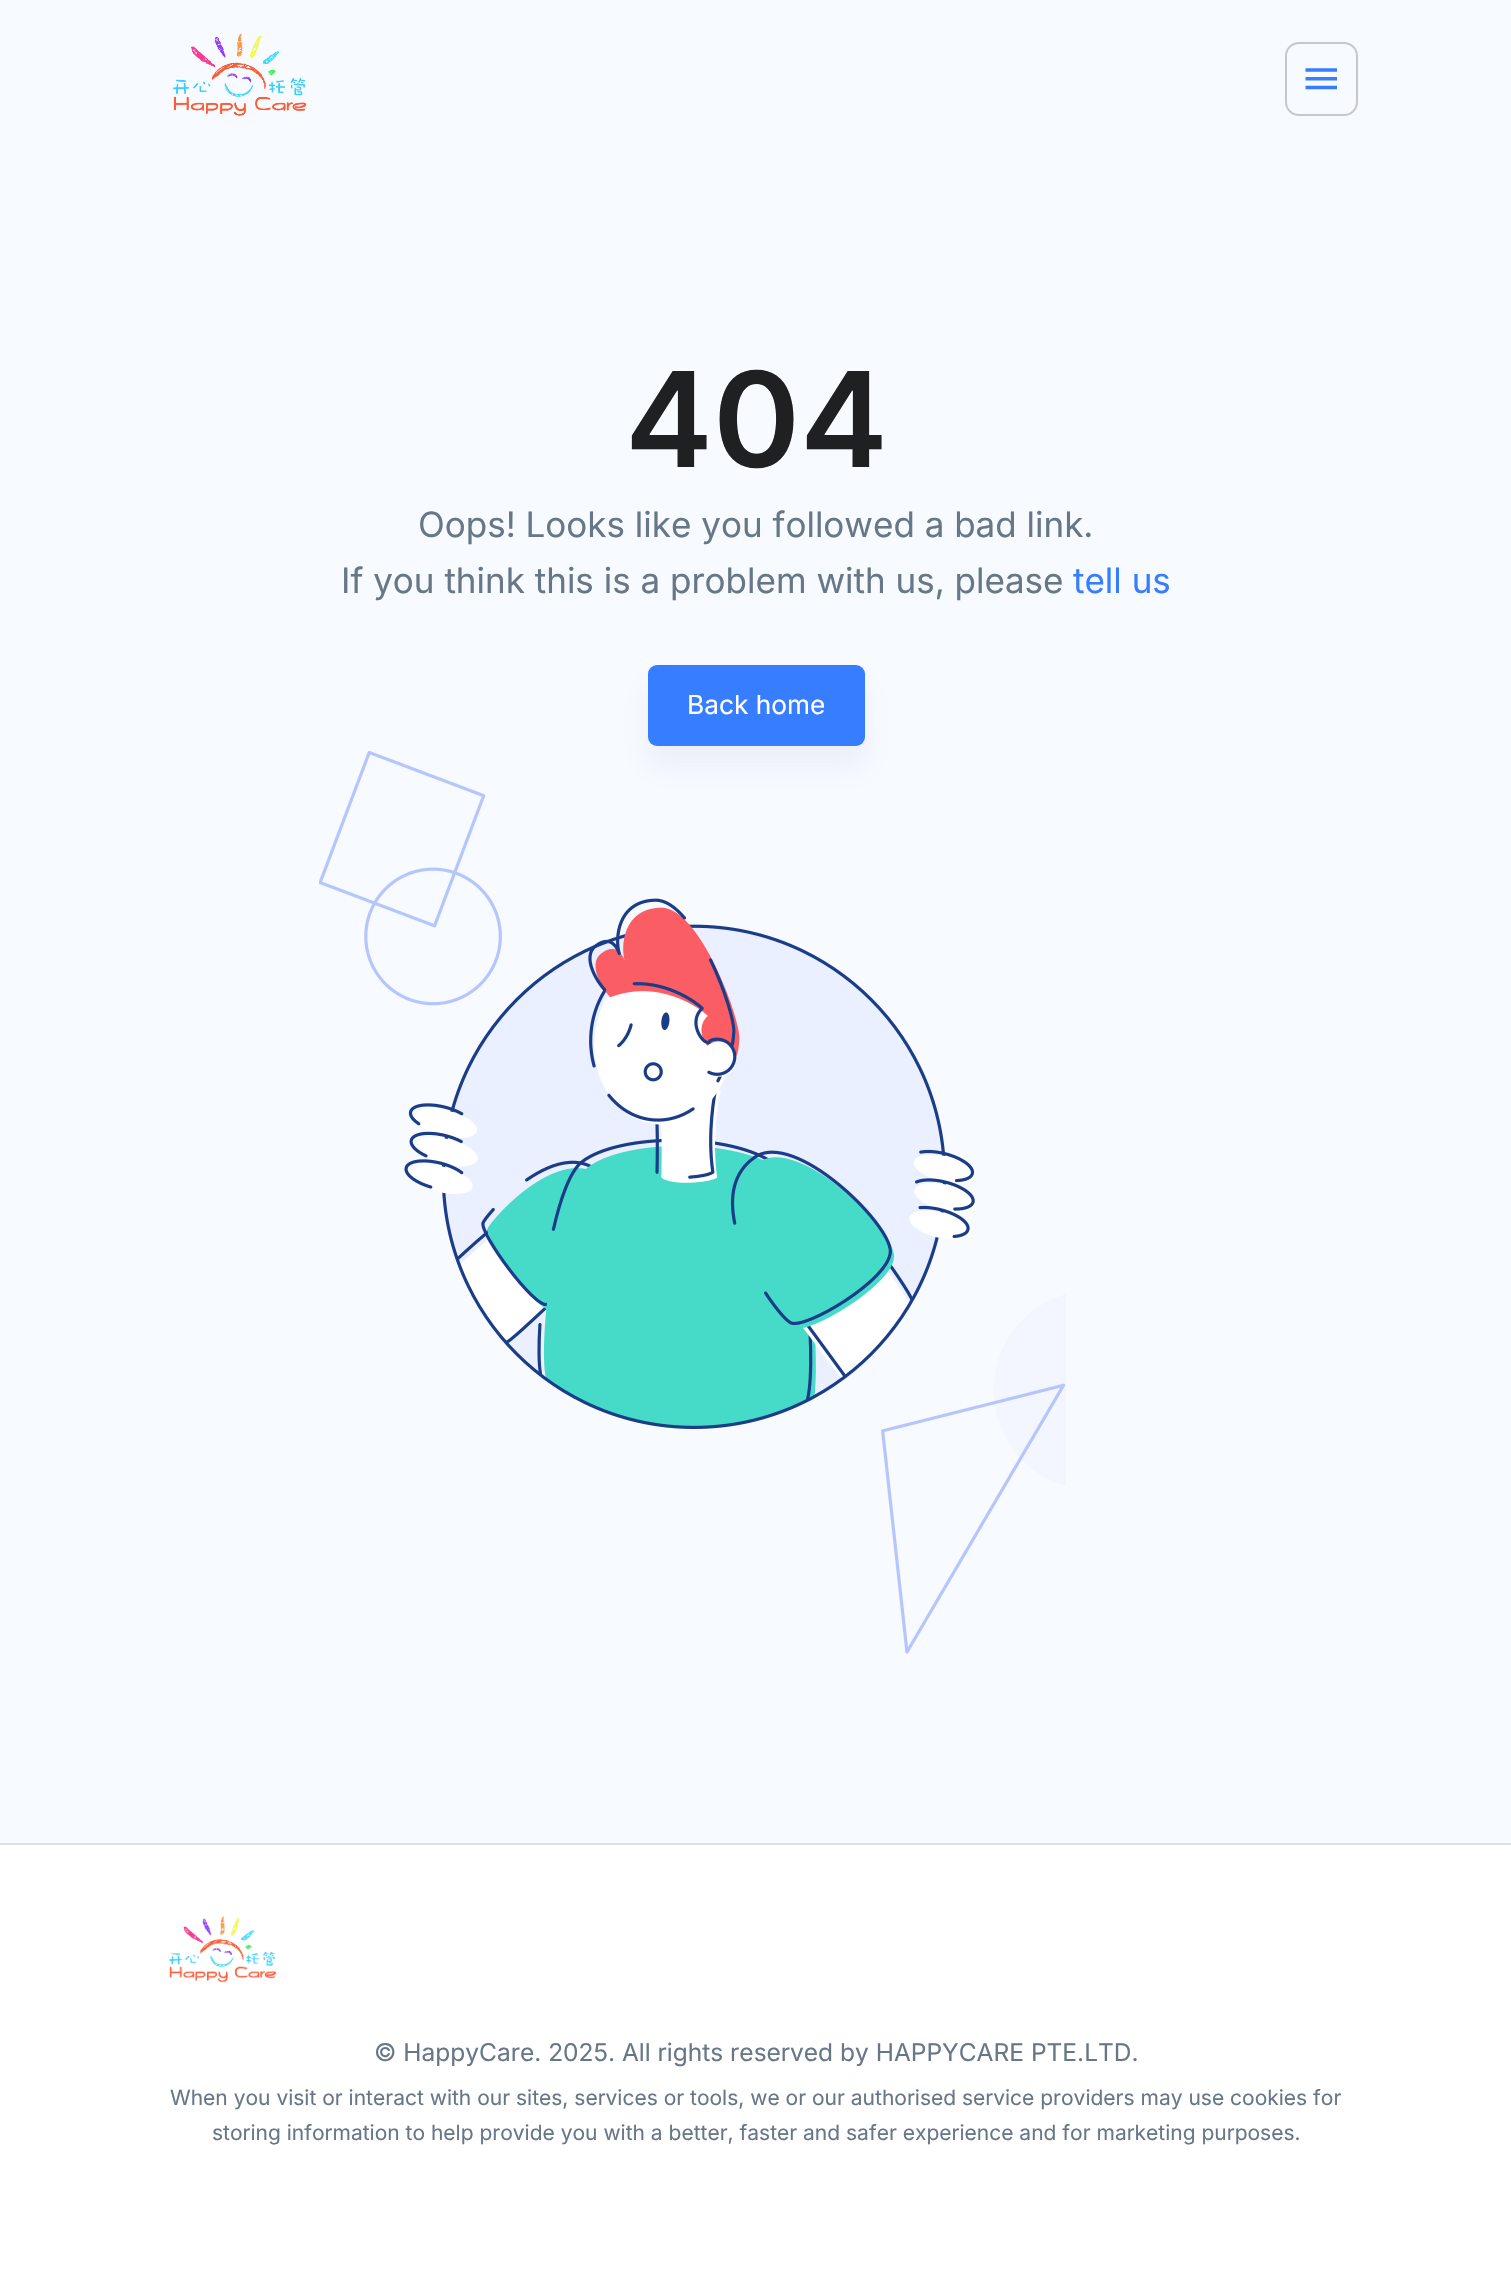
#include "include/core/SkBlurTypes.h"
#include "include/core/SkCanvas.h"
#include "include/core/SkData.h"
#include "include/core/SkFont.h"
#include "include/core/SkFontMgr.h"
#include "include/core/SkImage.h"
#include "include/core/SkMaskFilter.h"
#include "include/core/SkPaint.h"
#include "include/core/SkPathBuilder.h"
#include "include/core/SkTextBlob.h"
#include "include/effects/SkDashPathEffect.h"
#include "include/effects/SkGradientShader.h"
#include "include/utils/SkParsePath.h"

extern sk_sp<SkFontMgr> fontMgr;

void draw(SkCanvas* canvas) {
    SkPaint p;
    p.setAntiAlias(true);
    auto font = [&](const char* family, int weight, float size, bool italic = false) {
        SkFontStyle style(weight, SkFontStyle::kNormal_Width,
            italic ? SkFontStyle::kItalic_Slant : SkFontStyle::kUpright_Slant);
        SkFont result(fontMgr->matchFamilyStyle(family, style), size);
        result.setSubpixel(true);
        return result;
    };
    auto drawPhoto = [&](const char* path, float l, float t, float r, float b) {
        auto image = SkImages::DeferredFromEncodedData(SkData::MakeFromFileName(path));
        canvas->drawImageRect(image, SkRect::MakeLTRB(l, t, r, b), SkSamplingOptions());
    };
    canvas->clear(0xFFFFFFFF);
    p.setColor(0xFFF7FAFF);
    canvas->drawRect(SkRect::MakeLTRB(0, 0, 1511, 1843), p);
    drawPhoto("media/1.png", 173, 33, 307, 116);
    p.setStyle(SkPaint::kStroke_Style);
    p.setStrokeWidth(2);
    p.setColor(0xFFC6C8CC);
    canvas->drawRoundRect(SkRect::MakeLTRB(1286, 43, 1357, 115), 13, 13, p);
    drawPhoto("media/2.png", 1305, 68, 1337, 90);
    auto font1 = font("Inter", 600, 132);
    p.setStyle(SkPaint::kFill_Style);
    p.setColor(0xFF1E2022);
    canvas->drawString("404", 625, 467, font1, p);
    auto font2 = font("Inter", 400, 35);
    p.setColor(0xFF677788);
    canvas->drawString("Oops! Looks like you followed a bad link.", 418, 537, font2, p);
    canvas->drawString("If you think this is a problem with us, please", 341, 593, font2, p);
    p.setColor(0xFF377DFF);
    canvas->drawString("tell us", 1073, 593, font2, p);
    drawPhoto("media/3.png", 319, 751, 1066, 1654);
    p.setColor(0x1A8C98A4);
    p.setMaskFilter(SkMaskFilter::MakeBlur(kNormal_SkBlurStyle, 13));
    canvas->drawRoundRect(SkRect::MakeLTRB(648, 686, 865, 767), 9, 9, p);
    p.setMaskFilter(nullptr);
    p.setColor(0xFF377DFF);
    canvas->drawRoundRect(SkRect::MakeLTRB(648, 665, 865, 746), 9, 9, p);
    auto font3 = font("Inter", 400, 26.25f);
    p.setColor(0xFFFFFFFF);
    canvas->drawString("Back home", 687, 714, font3, p);
    p.setColor(0xFFE0E0E0);
    canvas->drawRect(SkRect::MakeLTRB(0, 1843, 1511, 1845), p);
    drawPhoto("media/4.png", 169, 1916, 277, 1983);
    auto font4 = font("Inter", 400, 24.5f);
    p.setColor(0xFF677788);
    canvas->drawString("© HappyCare. 2025. All rights reserved by HAPPYCARE PTE.LTD.", 374, 2061, font4, p);
    auto font5 = font("Inter", 400, 21);
    canvas->drawString("When you visit or interact with our sites, services or tools, we or our authorised service providers may use cookies for", 170, 2105, font5, p);
    canvas->drawString("storing information to help provide you with a better, faster and safer experience and for marketing purposes.", 212, 2140, font5, p);
}
